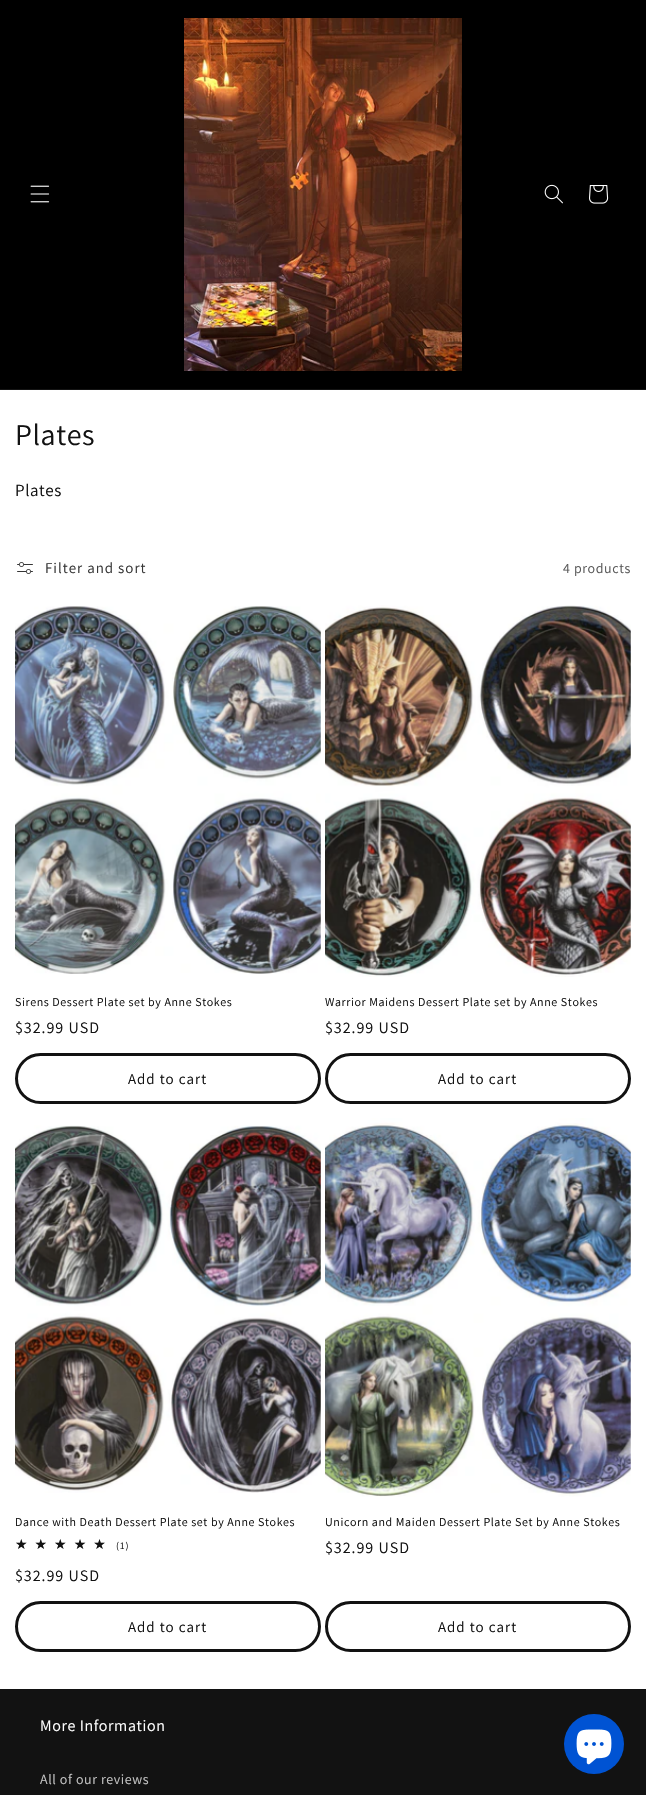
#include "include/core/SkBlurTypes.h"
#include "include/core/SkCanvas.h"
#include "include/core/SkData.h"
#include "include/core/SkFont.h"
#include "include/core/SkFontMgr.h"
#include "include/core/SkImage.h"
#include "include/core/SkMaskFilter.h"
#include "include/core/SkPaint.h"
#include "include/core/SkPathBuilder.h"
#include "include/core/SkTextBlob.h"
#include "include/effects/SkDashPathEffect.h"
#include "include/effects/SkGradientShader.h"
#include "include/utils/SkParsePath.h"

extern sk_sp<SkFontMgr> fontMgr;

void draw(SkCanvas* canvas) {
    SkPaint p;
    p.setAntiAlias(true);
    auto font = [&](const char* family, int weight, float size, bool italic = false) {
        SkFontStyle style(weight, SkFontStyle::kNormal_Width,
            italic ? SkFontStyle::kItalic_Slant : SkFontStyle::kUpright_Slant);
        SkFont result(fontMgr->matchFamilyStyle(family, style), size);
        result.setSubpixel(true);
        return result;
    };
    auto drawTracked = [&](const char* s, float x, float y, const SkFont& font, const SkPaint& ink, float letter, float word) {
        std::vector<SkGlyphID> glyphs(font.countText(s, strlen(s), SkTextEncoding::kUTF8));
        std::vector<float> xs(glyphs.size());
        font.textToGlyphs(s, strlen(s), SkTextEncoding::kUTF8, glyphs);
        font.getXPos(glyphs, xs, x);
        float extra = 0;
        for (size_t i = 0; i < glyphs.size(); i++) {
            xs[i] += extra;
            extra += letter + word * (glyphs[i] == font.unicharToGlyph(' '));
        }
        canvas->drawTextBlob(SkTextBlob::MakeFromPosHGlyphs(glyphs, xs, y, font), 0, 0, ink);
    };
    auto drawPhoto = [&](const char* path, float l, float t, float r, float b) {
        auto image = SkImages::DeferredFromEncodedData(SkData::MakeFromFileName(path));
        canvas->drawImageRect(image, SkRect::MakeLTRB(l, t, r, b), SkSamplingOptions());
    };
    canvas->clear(0xFFFFFFFF);
    p.setColor(0xFF000000);
    canvas->drawRect(SkRect::MakeLTRB(0, 0, 646, 389), p);
    p.setColor(0xFF141414);
    canvas->drawRect(SkRect::MakeLTRB(0, 389, 646, 390), p);
    drawPhoto("media/1.png", 30, 185, 50, 203);
    drawPhoto("media/2.png", 184, 18, 462, 371);
    drawPhoto("media/3.png", 544, 184, 563, 204);
    drawPhoto("media/4.png", 589, 185, 609, 204);
    auto font1 = font("Assistant", 400, 30);
    p.setColor(0xFF121212);
    drawTracked("Plates", 15, 445, font1, p, 0.6f, 0);
    auto font2 = font("Assistant", 400, 17);
    drawTracked("Plates", 15, 496, font2, p, 0.6f, 0);
    drawPhoto("media/5.png", 17, 562, 33, 574);
    auto font3 = font("Assistant", 400, 15);
    p.setColor(0xFF363636);
    drawTracked("Filter and sort", 45, 573, font3, p, 1, 0);
    auto font4 = font("Assistant", 400, 14);
    p.setColor(0xFF595959);
    drawTracked("4 products", 563, 573, font4, p, 0.6f, 0);
    drawPhoto("media/6.png", 15, 606, 321, 974);
    auto font5 = font("Assistant", 400, 12);
    p.setColor(0xFF121212);
    drawTracked("Sirens Dessert Plate set by Anne Stokes", 15, 1006, font5, p, 0.6f, 0);
    auto font6 = font("Assistant", 400, 16);
    drawTracked("$32.99 USD", 15, 1033, font6, p, 1, 0);
    p.setStyle(SkPaint::kStroke_Style);
    p.setStrokeWidth(3);
    canvas->drawRoundRect(SkRect::MakeLTRB(16.5f, 1054.5f, 319.5f, 1102.5f), 24, 24, p);
    p.setStyle(SkPaint::kFill_Style);
    drawTracked("Add to cart", 128, 1084, font3, p, 1, 0);
    drawPhoto("media/7.png", 325, 605, 631, 977);
    drawTracked("Warrior Maidens Dessert Plate set by Anne Stokes", 325, 1006, font5, p, 0.6f, 0);
    drawTracked("$32.99 USD", 325, 1033, font6, p, 1, 0);
    p.setStyle(SkPaint::kStroke_Style);
    canvas->drawRoundRect(SkRect::MakeLTRB(326.5f, 1054.5f, 629.5f, 1102.5f), 24, 24, p);
    p.setStyle(SkPaint::kFill_Style);
    drawTracked("Add to cart", 438, 1084, font3, p, 1, 0);
    drawPhoto("media/8.png", 15, 1125, 321, 1493);
    drawTracked("Dance with Death Dessert Plate set by Anne Stokes", 15, 1526, font5, p, 0.6f, 0);
    auto font7 = font("DejaVu Sans", 400, 14);
    {
        const SkColor colors[] = {0xFF121212, 0xFFDBDBDB};
        const float stops[] = {1, 1};
        const SkPoint ends[] = {{15, 1545}, {113, 1545}};
        p.setShader(SkGradientShader::MakeLinear(ends, colors, stops, 2, SkTileMode::kClamp));
        p.setAlpha(255);
    }
    drawTracked("★★★★★", 15, 1549, font7, p, 7, 0);
    auto font8 = font("Assistant", 400, 10);
    p.setShader(nullptr);
    p.setColor(0xFF121212);
    drawTracked("(1)", 116, 1549, font8, p, 1, 0);
    drawTracked("$32.99 USD", 15, 1581, font6, p, 1, 0);
    p.setStyle(SkPaint::kStroke_Style);
    canvas->drawRoundRect(SkRect::MakeLTRB(16.5f, 1602.5f, 319.5f, 1650.5f), 24, 24, p);
    p.setStyle(SkPaint::kFill_Style);
    drawTracked("Add to cart", 128, 1632, font3, p, 1, 0);
    drawPhoto("media/9.png", 325, 1118, 631, 1497);
    drawTracked("Unicorn and Maiden Dessert Plate Set by Anne Stokes", 325, 1526, font5, p, 0.6f, 0);
    drawTracked("$32.99 USD", 325, 1553, font6, p, 1, 0);
    p.setStyle(SkPaint::kStroke_Style);
    canvas->drawRoundRect(SkRect::MakeLTRB(326.5f, 1602.5f, 629.5f, 1650.5f), 24, 24, p);
    p.setStyle(SkPaint::kFill_Style);
    drawTracked("Add to cart", 438, 1632, font3, p, 1, 0);
    canvas->drawRect(SkRect::MakeLTRB(0, 1689, 646, 1795), p);
    p.setColor(0xFFFFFFFF);
    drawTracked("More Information", 40, 1731, font6, p, 0.6f, 0);
    p.setColor(0xFFC4C4C4);
    drawTracked("All of our reviews", 40, 1784, font4, p, 0.6f, 0);
    p.setColor(0xFF0053D3);
    canvas->drawCircle(594, 1744, 30, p);
    drawPhoto("media/10.png", 576, 1729, 612, 1765);
}
